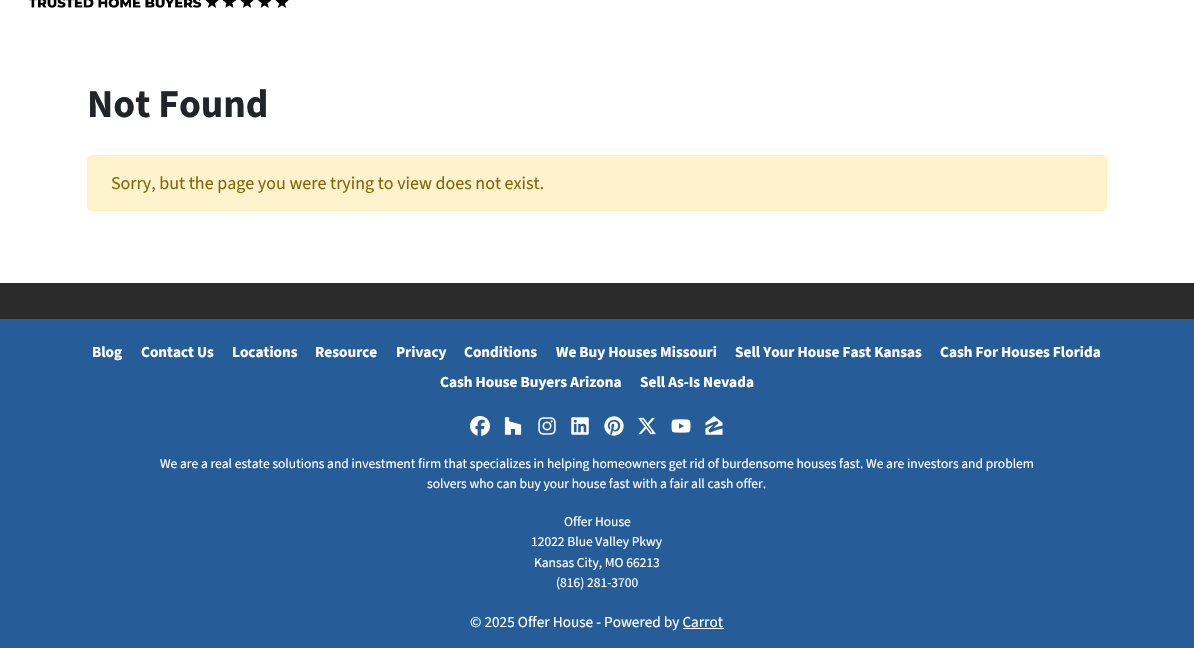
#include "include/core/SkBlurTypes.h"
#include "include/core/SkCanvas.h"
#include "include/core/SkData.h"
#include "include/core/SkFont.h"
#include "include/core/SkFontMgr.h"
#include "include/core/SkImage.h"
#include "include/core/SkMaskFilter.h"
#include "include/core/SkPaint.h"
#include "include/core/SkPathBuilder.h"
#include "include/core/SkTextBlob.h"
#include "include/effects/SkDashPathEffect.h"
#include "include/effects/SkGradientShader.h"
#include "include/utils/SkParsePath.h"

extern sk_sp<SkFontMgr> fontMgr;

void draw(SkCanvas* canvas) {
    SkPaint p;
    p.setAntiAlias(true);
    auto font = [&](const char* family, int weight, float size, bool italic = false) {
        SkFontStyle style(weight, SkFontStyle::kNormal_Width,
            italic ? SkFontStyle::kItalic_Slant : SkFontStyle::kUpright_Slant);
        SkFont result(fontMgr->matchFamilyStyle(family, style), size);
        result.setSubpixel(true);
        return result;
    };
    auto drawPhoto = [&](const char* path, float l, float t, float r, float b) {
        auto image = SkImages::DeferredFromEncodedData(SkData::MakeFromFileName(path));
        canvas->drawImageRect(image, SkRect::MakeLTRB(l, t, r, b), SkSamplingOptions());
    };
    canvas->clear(0xFFFFFFFF);
    drawPhoto("media/1.png", 28, 0, 289, 8);
    auto font1 = font("Source Sans 3", 700, 39.5f);
    p.setColor(0xFF212529);
    canvas->drawString("Not Found", 87, 117, font1, p);
    p.setColor(0xFFFFF3CD);
    canvas->drawRoundRect(SkRect::MakeLTRB(87.5f, 155.5f, 1106.5f, 210.5f), 4.5f, 4.5f, p);
    p.setStyle(SkPaint::kStroke_Style);
    p.setStrokeWidth(1);
    p.setColor(0xFFFFEEBA);
    canvas->drawRoundRect(SkRect::MakeLTRB(87.5f, 155.5f, 1106.5f, 210.5f), 4.5f, 4.5f, p);
    auto font2 = font("Source Sans 3", 400, 18);
    p.setStyle(SkPaint::kFill_Style);
    p.setColor(0xFF856404);
    canvas->drawString("Sorry, but the page you were trying to view does not exist.", 111, 189, font2, p);
    p.setColor(0xFF2B2B2B);
    canvas->drawRect(SkRect::MakeLTRB(0, 283, 1194, 319), p);
    p.setColor(0xFF265D99);
    canvas->drawRect(SkRect::MakeLTRB(0, 319, 1194, 648), p);
    auto font3 = font("Source Sans 3", 700, 15.25f);
    p.setColor(0xFFFFFFFF);
    {
        const struct { const char* s; float x, y; } items[] = {
            {"Blog", 92, 357},
            {"Contact Us", 141, 357},
            {"Locations", 232, 357},
            {"Resource", 315, 357},
            {"Privacy", 396, 357},
            {"Conditions", 464, 357},
            {"We Buy Houses Missouri", 556, 357},
            {"Sell Your House Fast Kansas", 735, 357},
            {"Cash For Houses Florida", 940, 357},
            {"Cash House Buyers Arizona", 440, 387},
            {"Sell As-Is Nevada", 640, 387},
        };
        for (auto [s, x, y] : items) {
            canvas->drawString(s, x, y, font3, p);
        }
    }
    drawPhoto("media/2.png", 470, 416, 490, 436);
    drawPhoto("media/3.png", 504, 417, 522, 435);
    drawPhoto("media/4.png", 538, 417, 556, 435);
    drawPhoto("media/5.png", 571, 417, 589, 435);
    drawPhoto("media/6.png", 604, 416, 624, 436);
    drawPhoto("media/7.png", 638, 417, 656, 435);
    drawPhoto("media/8.png", 671, 419, 691, 433);
    drawPhoto("media/9.png", 705, 416, 723, 435);
    auto font4 = font("Source Sans 3", 400, 13.5f);
    {
        const struct { const char* s; float x, y; } items[] = {
            {"We are a real estate solutions and investment firm that specializes in helping homeowners get rid of burdensome houses fast. We are investors and problem", 160, 468},
            {"solvers who can buy your house fast with a fair all cash offer.", 427, 488},
            {"Offer House", 564, 526},
            {"12022 Blue Valley Pkwy", 531, 546},
            {"Kansas City, MO 66213", 534, 567},
            {"(816) 281-3700", 556, 587},
        };
        for (auto [s, x, y] : items) {
            canvas->drawString(s, x, y, font4, p);
        }
    }
    auto font5 = font("Source Sans 3", 400, 15.25f);
    canvas->drawString("© 2025 Offer House - Powered by Carrot", 470, 627, font5, p);
    canvas->drawRect(SkRect::MakeLTRB(683, 628, 724, 629), p);
}
